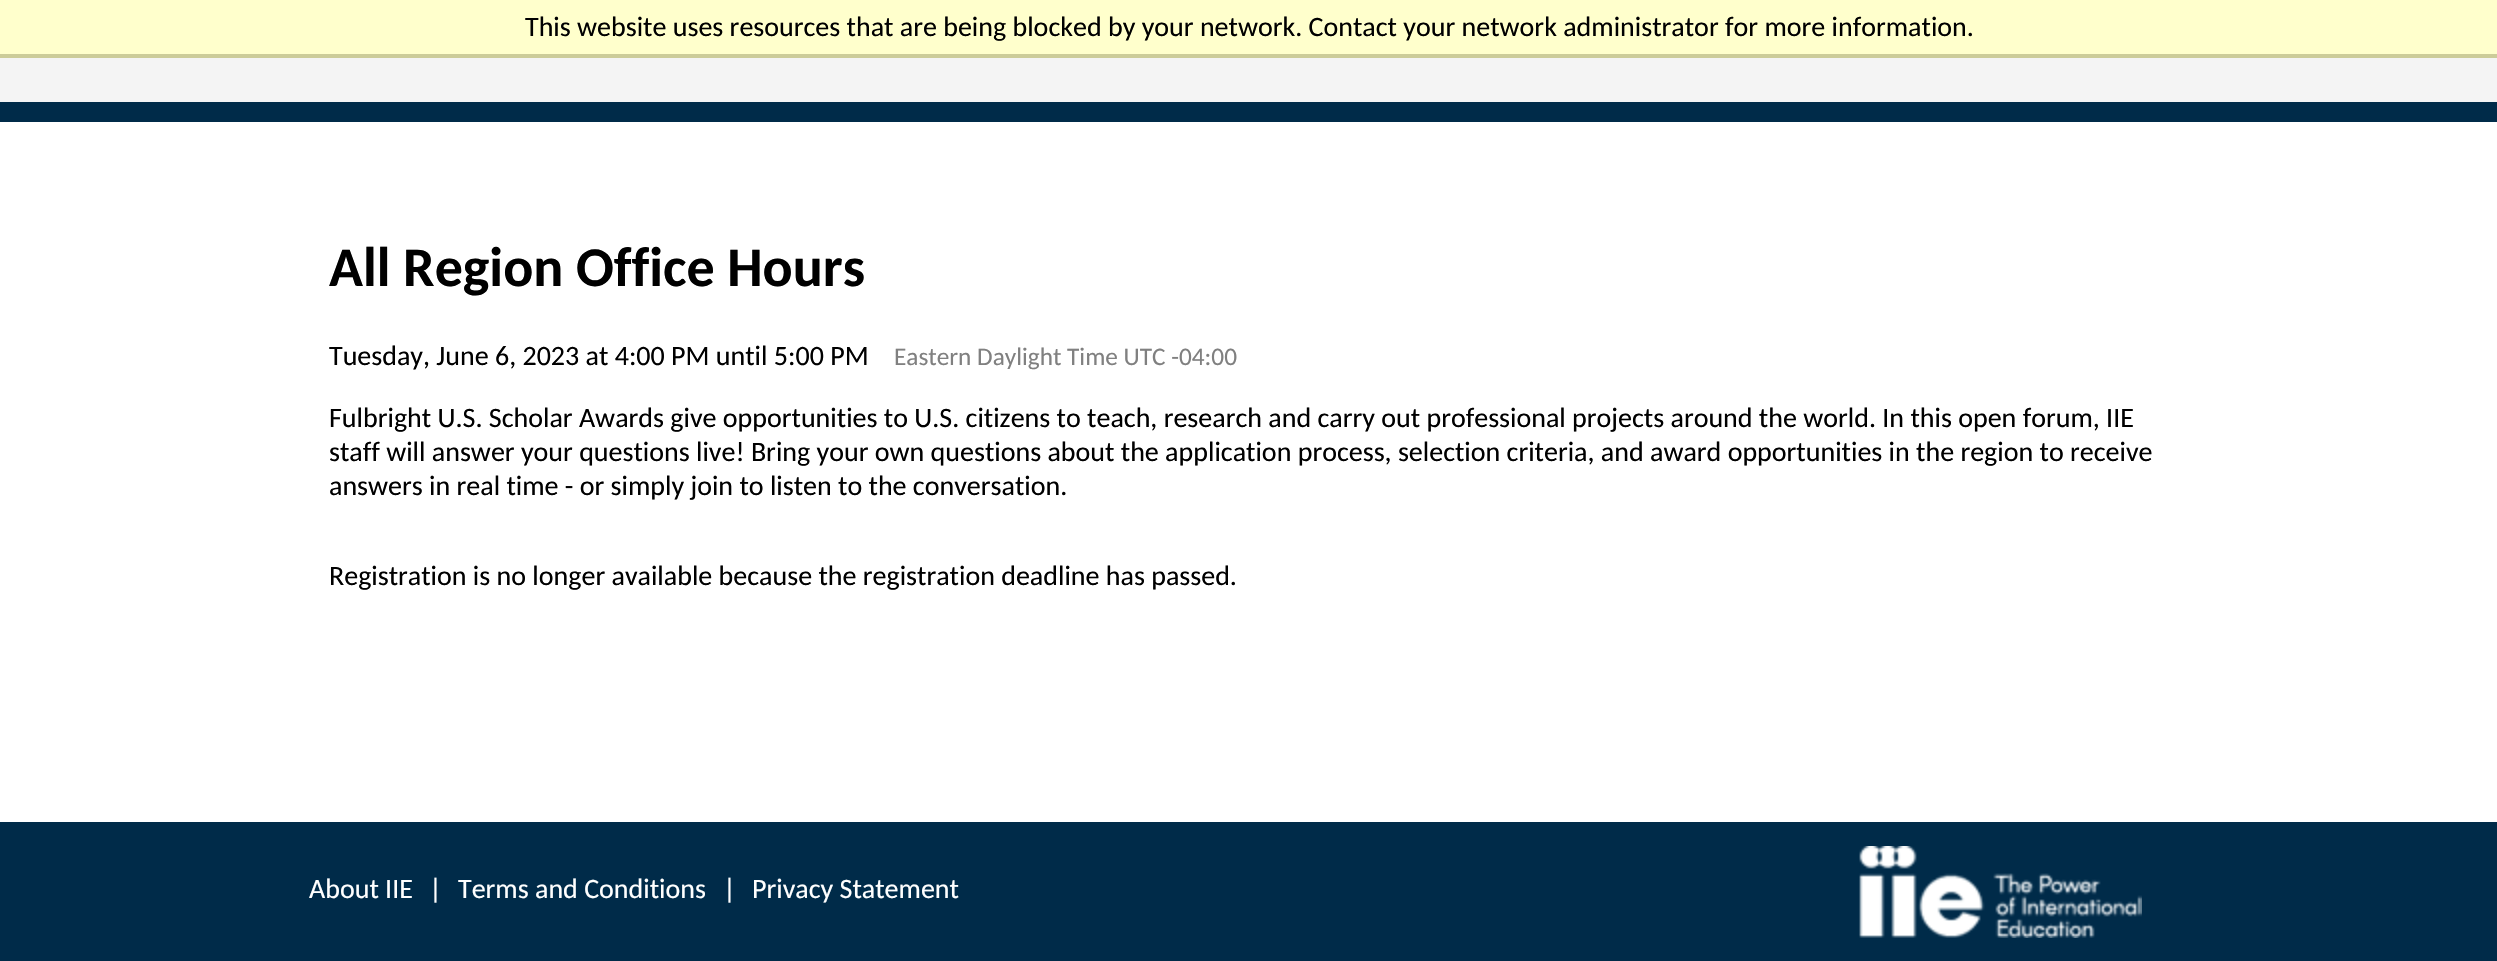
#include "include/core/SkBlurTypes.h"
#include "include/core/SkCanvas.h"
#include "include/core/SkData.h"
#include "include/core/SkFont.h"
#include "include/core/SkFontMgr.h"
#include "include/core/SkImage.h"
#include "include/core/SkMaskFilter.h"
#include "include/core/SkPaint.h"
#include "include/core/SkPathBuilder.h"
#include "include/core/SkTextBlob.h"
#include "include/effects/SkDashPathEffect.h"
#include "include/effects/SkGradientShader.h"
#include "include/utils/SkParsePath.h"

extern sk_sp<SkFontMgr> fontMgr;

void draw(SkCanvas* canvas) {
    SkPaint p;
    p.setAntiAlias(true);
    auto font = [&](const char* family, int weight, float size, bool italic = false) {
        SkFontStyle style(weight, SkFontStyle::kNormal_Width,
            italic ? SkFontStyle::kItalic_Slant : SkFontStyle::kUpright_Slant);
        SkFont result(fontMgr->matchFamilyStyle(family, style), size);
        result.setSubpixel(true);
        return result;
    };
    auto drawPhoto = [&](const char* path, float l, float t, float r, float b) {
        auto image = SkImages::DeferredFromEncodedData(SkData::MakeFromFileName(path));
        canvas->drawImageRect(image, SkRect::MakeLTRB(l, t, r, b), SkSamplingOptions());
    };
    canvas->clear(0xFFFFFFFF);
    p.setColor(0xFFFFFFCC);
    canvas->drawRect(SkRect::MakeLTRB(0, 0, 2497, 54), p);
    p.setColor(0xFFCCCC99);
    canvas->drawRect(SkRect::MakeLTRB(0, 54, 2497, 58), p);
    auto font1 = font("Carlito", 400, 28);
    p.setColor(0xFF000000);
    canvas->drawString("This website uses resources that are being blocked by your network. Contact your network administrator for more information.", 525, 36, font1, p);
    p.setColor(0xFFF4F4F4);
    canvas->drawRect(SkRect::MakeLTRB(0, 58, 2497, 102), p);
    p.setColor(0xFF002B49);
    canvas->drawRect(SkRect::MakeLTRB(0, 102, 2497, 122), p);
    auto font2 = font("Carlito", 700, 56);
    p.setColor(0xFF000000);
    canvas->drawString("All Region Office Hours", 329, 286, font2, p);
    canvas->drawString("Tuesday, June 6, 2023 at 4:00 PM until 5:00 PM", 329, 365, font1, p);
    auto font3 = font("Carlito", 400, 25.25f);
    p.setColor(0xFF808080);
    canvas->drawString("Eastern Daylight Time UTC -04:00", 894, 365, font3, p);
    p.setColor(0xFF000000);
    {
        const struct { const char* s; float x, y; } items[] = {
            {"Fulbright U.S. Scholar Awards give opportunities to U.S. citizens to teach, research and carry out professional projects around the world. In this open forum, IIE", 329, 427},
            {"staff will answer your questions live! Bring your own questions about the application process, selection criteria, and award opportunities in the region to receive", 329, 461},
            {"answers in real time - or simply join to listen to the conversation.", 329, 495},
            {"Registration is no longer available because the registration deadline has passed.", 329, 585},
        };
        for (auto [s, x, y] : items) {
            canvas->drawString(s, x, y, font1, p);
        }
    }
    p.setColor(0xFF002B49);
    canvas->drawRect(SkRect::MakeLTRB(0, 822, 2497, 961), p);
    p.setColor(0xFFFFFFFF);
    {
        const struct { const char* s; float x, y; } items[] = {
            {"About IIE", 309, 898},
            {"|", 429, 898},
            {"Terms and Conditions", 458, 898},
            {"|", 723, 898},
            {"Privacy Statement", 752, 898},
        };
        for (auto [s, x, y] : items) {
            canvas->drawString(s, x, y, font1, p);
        }
    }
    drawPhoto("media/1.png", 1859, 846, 2142, 938);
}
